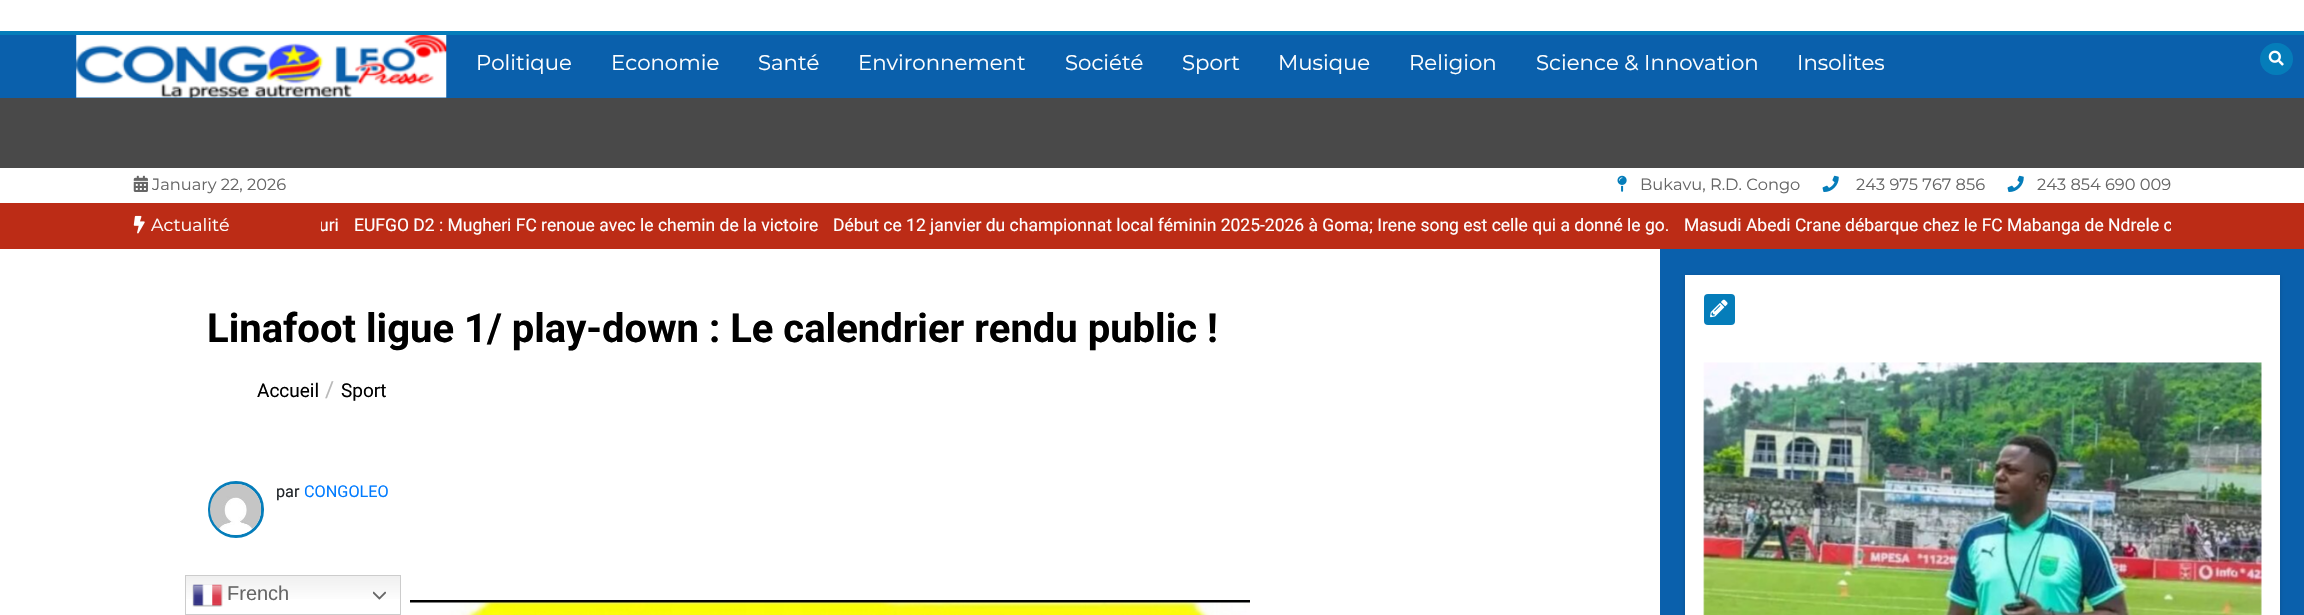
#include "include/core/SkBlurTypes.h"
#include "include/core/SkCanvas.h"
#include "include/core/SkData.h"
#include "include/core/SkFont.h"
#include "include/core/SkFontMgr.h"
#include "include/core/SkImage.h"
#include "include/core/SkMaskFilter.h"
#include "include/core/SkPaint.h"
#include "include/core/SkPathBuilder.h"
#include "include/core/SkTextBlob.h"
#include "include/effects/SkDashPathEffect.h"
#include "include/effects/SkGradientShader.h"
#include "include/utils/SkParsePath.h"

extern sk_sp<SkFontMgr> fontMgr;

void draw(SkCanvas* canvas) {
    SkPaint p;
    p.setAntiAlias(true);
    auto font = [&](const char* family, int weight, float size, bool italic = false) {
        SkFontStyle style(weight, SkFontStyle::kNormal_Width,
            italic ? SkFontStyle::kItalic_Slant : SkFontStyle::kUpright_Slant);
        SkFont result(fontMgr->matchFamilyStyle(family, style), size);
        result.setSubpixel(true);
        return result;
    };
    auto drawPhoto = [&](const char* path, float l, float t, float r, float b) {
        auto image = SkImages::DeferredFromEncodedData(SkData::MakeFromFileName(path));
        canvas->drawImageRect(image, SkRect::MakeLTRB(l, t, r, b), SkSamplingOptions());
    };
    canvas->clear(0xFFFFFFFF);
    p.setColor(0xFF0A60AC);
    canvas->drawRect(SkRect::MakeLTRB(0, 35, 2304, 98), p);
    p.setColor(0xFF057DBA);
    canvas->drawRect(SkRect::MakeLTRB(0, 31, 2304, 35), p);
    drawPhoto("media/1.png", 76, 35, 447, 98);
    auto font1 = font("Montserrat", 100, 21.25f);
    p.setColor(0xFFFFFFFF);
    {
        const struct { const char* s; float x, y; } items[] = {
            {"Politique", 476, 70},
            {"Economie", 611, 70},
            {"Santé", 758, 70},
            {"Environnement", 858, 70},
            {"Société", 1065, 70},
            {"Sport", 1182, 70},
            {"Musique", 1278, 70},
            {"Religion", 1409, 70},
            {"Science & Innovation", 1536, 70},
            {"Insolites", 1797, 70},
        };
        for (auto [s, x, y] : items) {
            canvas->drawString(s, x, y, font1, p);
        }
    }
    p.setColor(0xFF057DBA);
    canvas->drawRoundRect(SkRect::MakeLTRB(2260, 43, 2293, 75), 16, 16, p);
    drawPhoto("media/2.png", 2268, 50, 2284, 66);
    p.setColor(0xFF494949);
    canvas->drawRect(SkRect::MakeLTRB(0, 98, 2304, 168), p);
    drawPhoto("media/3.png", 133, 175, 148, 192);
    auto font2 = font("Montserrat", 100, 16.25f);
    p.setColor(0xFF666666);
    canvas->drawString("January 22, 2026", 152, 190, font2, p);
    drawPhoto("media/4.png", 1617, 175, 1627, 192);
    canvas->drawString("Bukavu, R.D. Congo", 1640, 190, font2, p);
    drawPhoto("media/5.png", 1822, 175, 1839, 192);
    canvas->drawString("243 975 767 856", 1856, 190, font2, p);
    drawPhoto("media/5.png", 2007, 175, 2024, 192);
    canvas->drawString("243 854 690 009", 2037, 190, font2, p);
    p.setColor(0xFFBC2C16);
    canvas->drawRect(SkRect::MakeLTRB(0, 203, 2304, 249), p);
    drawPhoto("media/6.png", 133, 215, 145, 234);
    auto font3 = font("Montserrat", 100, 17.5f);
    p.setColor(0xFFFFFFFF);
    canvas->drawString("Actualité", 151, 231, font3, p);
    canvas->save();
    canvas->clipRect(SkRect::MakeLTRB(321, 213, 2171, 239));
    auto font4 = font("Roboto", 400, 17.5f);
    canvas->drawString("uri", 319, 231, font4, p);
    canvas->restore();
    canvas->drawString("EUFGO D2 : Mugheri FC renoue avec le chemin de la victoire", 354, 231, font4, p);
    canvas->drawString("Début ce 12 janvier du championnat local féminin 2025-2026 à Goma; Irene song est celle qui a donné le go.", 833, 231, font4, p);
    canvas->save();
    canvas->clipRect(SkRect::MakeLTRB(321, 213, 2171, 239));
    canvas->drawString("Masudi Abedi Crane débarque chez le FC Mabanga de Ndrele c", 1684, 231, font4, p);
    canvas->restore();
    auto font5 = font("Roboto", 700, 40);
    p.setColor(0xFF000000);
    canvas->drawString("Linafoot ligue 1/ play-down : Le calendrier rendu public !", 207, 342, font5, p);
    auto font6 = font("Roboto", 400, 19);
    canvas->drawString("Accueil", 257, 397, font6, p);
    auto font7 = font("Roboto", 400, 22);
    p.setColor(0xFFB9B9B9);
    canvas->drawString("/", 325, 397, font7, p);
    p.setColor(0xFF000000);
    canvas->drawString("Sport", 341, 397, font6, p);
    p.setStyle(SkPaint::kStroke_Style);
    p.setStrokeWidth(3);
    p.setColor(0xFF057DBA);
    canvas->drawRoundRect(SkRect::MakeLTRB(209.5f, 482.5f, 262.5f, 536.5f), 26.5f, 26.5f, p);
    drawPhoto("media/7.png", 210, 483, 262, 535);
    auto font8 = font("Roboto", 400, 16.25f);
    p.setStyle(SkPaint::kFill_Style);
    p.setColor(0xFF212529);
    canvas->drawString("par", 276, 497, font8, p);
    p.setColor(0xFF007BFF);
    canvas->drawString("CONGOLEO", 304, 497, font8, p);
    drawPhoto("media/8.png", 410, 600, 1250, 615);
    p.setColor(0xFF0A60AC);
    canvas->drawRect(SkRect::MakeLTRB(1660, 249, 2304, 615), p);
    p.setColor(0x26000000);
    p.setMaskFilter(SkMaskFilter::MakeBlur(kNormal_SkBlurStyle, 2));
    canvas->drawRect(SkRect::MakeLTRB(1685, 276, 2280, 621), p);
    p.setMaskFilter(nullptr);
    p.setColor(0xFFFFFFFF);
    canvas->drawRect(SkRect::MakeLTRB(1685, 275, 2280, 615), p);
    p.setColor(0xFF057DBA);
    canvas->drawRoundRect(SkRect::MakeLTRB(1704, 294, 1735, 325), 4, 4, p);
    drawPhoto("media/9.png", 1710, 299, 1728, 318);
    drawPhoto("media/10.png", 1703, 362, 2262, 615);
    {
        const SkColor colors[] = {0xFFEFEFEF, 0xFFFFFFFF};
        const float stops[] = {0, 0.7f};
        const SkPoint ends[] = {{293, 575}, {293, 615}};
        p.setShader(SkGradientShader::MakeLinear(ends, colors, stops, 2, SkTileMode::kClamp));
        p.setAlpha(255);
    }
    canvas->drawRect(SkRect::MakeLTRB(186, 576, 400, 599), p);
    p.setStyle(SkPaint::kStroke_Style);
    p.setStrokeWidth(1);
    p.setShader(nullptr);
    p.setColor(0xFFCCCCCC);
    canvas->drawRect(SkRect::MakeLTRB(185.5f, 575.5f, 400.5f, 614.5f), p);
    drawPhoto("media/11.png", 192, 584, 223, 607);
    auto font9 = font("Liberation Sans", 400, 20);
    p.setStyle(SkPaint::kFill_Style);
    p.setColor(0xFF666666);
    canvas->drawString("French", 227, 600, font9, p);
    drawPhoto("media/12.png", 373, 591, 386, 600);
}
